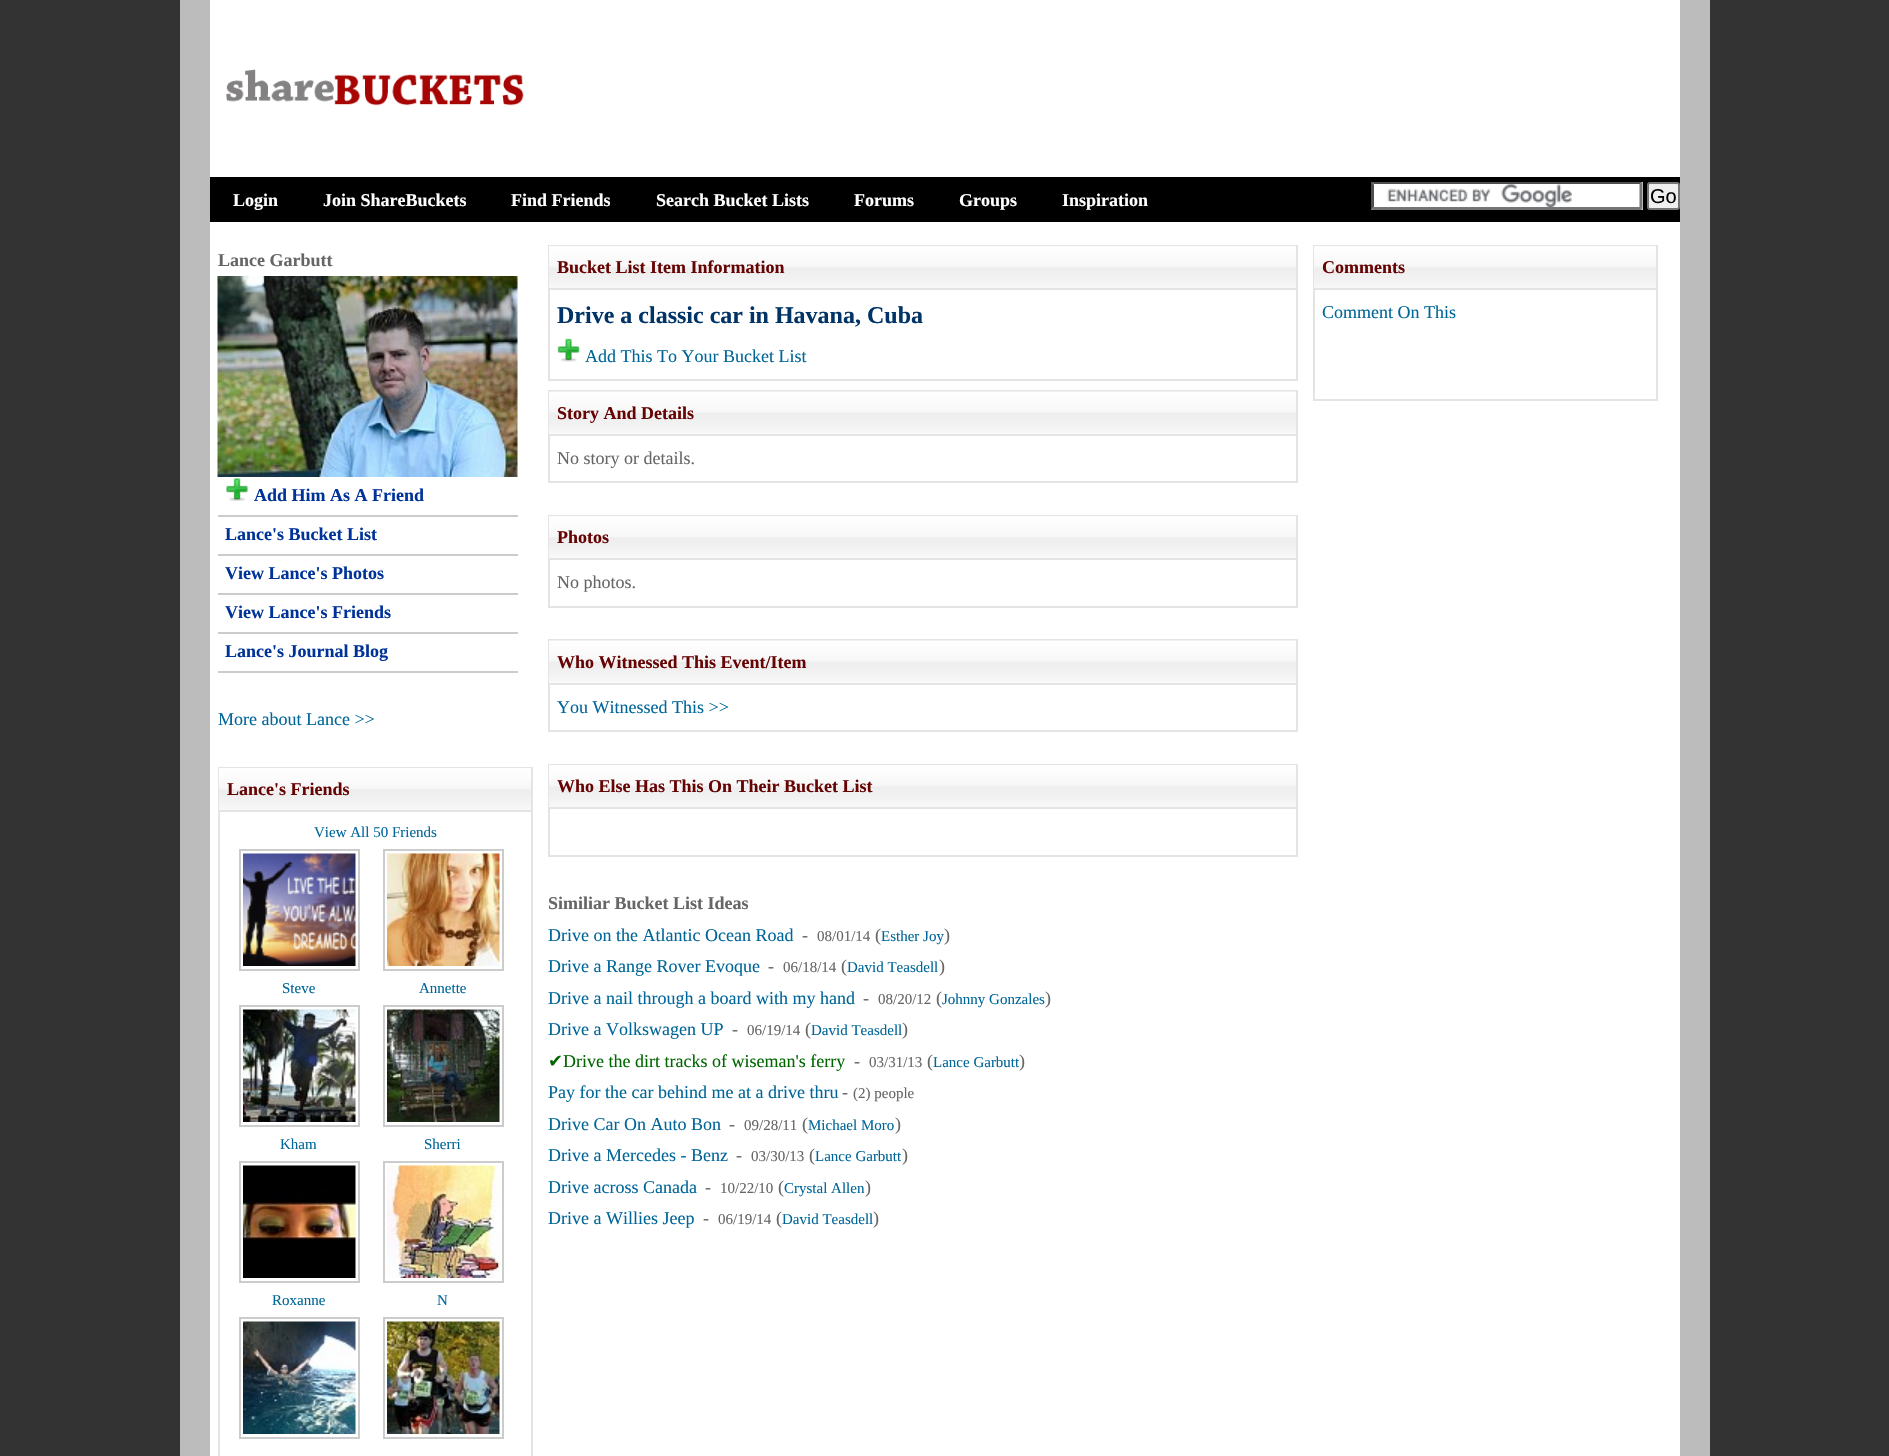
#include "include/core/SkBlurTypes.h"
#include "include/core/SkCanvas.h"
#include "include/core/SkData.h"
#include "include/core/SkFont.h"
#include "include/core/SkFontMgr.h"
#include "include/core/SkImage.h"
#include "include/core/SkMaskFilter.h"
#include "include/core/SkPaint.h"
#include "include/core/SkPathBuilder.h"
#include "include/core/SkTextBlob.h"
#include "include/effects/SkDashPathEffect.h"
#include "include/effects/SkGradientShader.h"
#include "include/utils/SkParsePath.h"

extern sk_sp<SkFontMgr> fontMgr;

void draw(SkCanvas* canvas) {
    SkPaint p;
    p.setAntiAlias(true);
    auto font = [&](const char* family, int weight, float size, bool italic = false) {
        SkFontStyle style(weight, SkFontStyle::kNormal_Width,
            italic ? SkFontStyle::kItalic_Slant : SkFontStyle::kUpright_Slant);
        SkFont result(fontMgr->matchFamilyStyle(family, style), size);
        result.setSubpixel(true);
        return result;
    };
    auto drawPhoto = [&](const char* path, float l, float t, float r, float b) {
        auto image = SkImages::DeferredFromEncodedData(SkData::MakeFromFileName(path));
        canvas->drawImageRect(image, SkRect::MakeLTRB(l, t, r, b), SkSamplingOptions());
    };
    canvas->clear(0xFF333333);
    {
        const struct { float l, t, r, b; SkColor color; } items[] = {
            {210, 0, 1680, 1456, 0xFFFFFFFF},
            {1680, 0, 1710, 1456, 0xFFBCBCBC},
            {180, 0, 210, 1456, 0xFFBCBCBC},
        };
        for (auto [l, t, r, b, color] : items) {
            p.setColor(color);
            canvas->drawRect(SkRect::MakeLTRB(l, t, r, b), p);
        }
    }
    drawPhoto("media/1.png", 226, 69, 524, 106);
    p.setColor(0xFF000000);
    canvas->drawRect(SkRect::MakeLTRB(210, 177, 1680, 222), p);
    auto font1 = font("Liberation Serif", 700, 18);
    p.setColor(0xFFFFFFFF);
    {
        const struct { const char* s; float x, y; } items[] = {
            {"Login", 233, 206},
            {"Join ShareBuckets", 323, 206},
            {"Find Friends", 511, 206},
            {"Search Bucket Lists", 656, 206},
            {"Forums", 854, 206},
            {"Groups", 959, 206},
            {"Inspiration", 1062, 206},
        };
        for (auto [s, x, y] : items) {
            canvas->drawString(s, x, y, font1, p);
        }
    }
    canvas->drawRect(SkRect::MakeLTRB(1371, 182, 1643, 210), p);
    drawPhoto("media/2.png", 1387, 184, 1572, 207);
    p.setColor(0xFF4F4F4F);
    canvas->drawPath(SkPathBuilder().moveTo(1371, 182).lineTo(1642, 182).lineTo(1640, 184).lineTo(1374, 184).close().detach(), p);
    p.setColor(0xFF767676);
    canvas->drawPath(SkPathBuilder().moveTo(1642.5f, 181.5f).lineTo(1642.5f, 210).lineTo(1639.5f, 207).lineTo(1639.5f, 184.5f).close().detach(), p);
    canvas->drawPath(SkPathBuilder().moveTo(1642, 210).lineTo(1371, 210).lineTo(1374, 207).lineTo(1640, 207).close().detach(), p);
    p.setColor(0xFF4F4F4F);
    canvas->drawPath(SkPathBuilder().moveTo(1371, 210).lineTo(1371, 181.5f).lineTo(1374, 184.5f).lineTo(1374, 207).close().detach(), p);
    p.setColor(0xFFEFEFEF);
    canvas->drawRoundRect(SkRect::MakeLTRB(1648, 183, 1679, 209), 2, 2, p);
    p.setStyle(SkPaint::kStroke_Style);
    p.setStrokeWidth(2);
    p.setColor(0xFF767676);
    canvas->drawRoundRect(SkRect::MakeLTRB(1648, 183, 1679, 209), 2, 2, p);
    auto font2 = font("Liberation Sans", 400, 20);
    p.setStyle(SkPaint::kFill_Style);
    p.setColor(0xFF000000);
    canvas->drawString("Go", 1650, 203, font2, p);
    p.setColor(0xFF666666);
    canvas->drawString("Lance Garbutt", 218, 266, font1, p);
    drawPhoto("media/3.png", 217, 276, 518, 477);
    p.setColor(0xFFCCCCCC);
    canvas->drawRect(SkRect::MakeLTRB(218, 515, 518, 517), p);
    drawPhoto("media/4.png", 226, 478, 248, 501);
    p.setColor(0xFF003399);
    canvas->drawString("Add Him As A Friend", 254, 501, font1, p);
    p.setColor(0xFFCCCCCC);
    canvas->drawRect(SkRect::MakeLTRB(218, 554, 518, 556), p);
    p.setColor(0xFF003399);
    canvas->drawString("Lance's Bucket List", 225, 540, font1, p);
    p.setColor(0xFFCCCCCC);
    canvas->drawRect(SkRect::MakeLTRB(218, 593, 518, 595), p);
    p.setColor(0xFF003399);
    canvas->drawString("View Lance's Photos", 225, 579, font1, p);
    p.setColor(0xFFCCCCCC);
    canvas->drawRect(SkRect::MakeLTRB(218, 632, 518, 634), p);
    p.setColor(0xFF003399);
    canvas->drawString("View Lance's Friends", 225, 618, font1, p);
    p.setColor(0xFFCCCCCC);
    canvas->drawRect(SkRect::MakeLTRB(218, 671, 518, 673), p);
    p.setColor(0xFF003399);
    canvas->drawString("Lance's Journal Blog", 225, 657, font1, p);
    auto font3 = font("Liberation Serif", 400, 18);
    p.setColor(0xFF006699);
    canvas->drawString("More about Lance >>", 218, 725, font3, p);
    p.setStyle(SkPaint::kStroke_Style);
    p.setColor(0xFFE4E4E4);
    canvas->drawRect(SkRect::MakeLTRB(219, 768, 532, 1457), p);
    drawPhoto("media/5.png", 219, 768, 531, 810);
    p.setStyle(SkPaint::kFill_Style);
    canvas->drawRect(SkRect::MakeLTRB(219, 810, 531, 812), p);
    p.setColor(0xFF660404);
    canvas->drawString("Lance's Friends", 227, 795, font1, p);
    auto font4 = font("Liberation Serif", 400, 15);
    p.setColor(0xFF006699);
    canvas->drawString("View All 50 Friends", 314, 837, font4, p);
    p.setStyle(SkPaint::kStroke_Style);
    p.setColor(0xFFCCCCCC);
    canvas->drawRect(SkRect::MakeLTRB(240, 850, 359, 970), p);
    drawPhoto("media/6.png", 243, 853, 356, 966);
    p.setStyle(SkPaint::kFill_Style);
    p.setColor(0xFF006699);
    canvas->drawString("Steve", 282, 993, font4, p);
    p.setStyle(SkPaint::kStroke_Style);
    p.setColor(0xFFCCCCCC);
    canvas->drawRect(SkRect::MakeLTRB(384, 850, 503, 970), p);
    drawPhoto("media/7.png", 387, 853, 500, 966);
    p.setStyle(SkPaint::kFill_Style);
    p.setColor(0xFF006699);
    canvas->drawString("Annette", 419, 993, font4, p);
    p.setStyle(SkPaint::kStroke_Style);
    p.setColor(0xFFCCCCCC);
    canvas->drawRect(SkRect::MakeLTRB(240, 1006, 359, 1126), p);
    drawPhoto("media/8.png", 243, 1009, 356, 1122);
    p.setStyle(SkPaint::kFill_Style);
    p.setColor(0xFF006699);
    canvas->drawString("Kham", 280, 1149, font4, p);
    p.setStyle(SkPaint::kStroke_Style);
    p.setColor(0xFFCCCCCC);
    canvas->drawRect(SkRect::MakeLTRB(384, 1006, 503, 1126), p);
    drawPhoto("media/9.png", 387, 1009, 500, 1122);
    p.setStyle(SkPaint::kFill_Style);
    p.setColor(0xFF006699);
    canvas->drawString("Sherri", 424, 1149, font4, p);
    p.setStyle(SkPaint::kStroke_Style);
    p.setColor(0xFFCCCCCC);
    canvas->drawRect(SkRect::MakeLTRB(240, 1162, 359, 1282), p);
    drawPhoto("media/10.png", 243, 1165, 356, 1278);
    p.setStyle(SkPaint::kFill_Style);
    p.setColor(0xFF006699);
    canvas->drawString("Roxanne", 272, 1305, font4, p);
    p.setStyle(SkPaint::kStroke_Style);
    p.setColor(0xFFCCCCCC);
    canvas->drawRect(SkRect::MakeLTRB(384, 1162, 503, 1282), p);
    drawPhoto("media/11.png", 387, 1165, 500, 1278);
    p.setStyle(SkPaint::kFill_Style);
    p.setColor(0xFF006699);
    canvas->drawString("N", 437, 1305, font4, p);
    p.setStyle(SkPaint::kStroke_Style);
    p.setColor(0xFFCCCCCC);
    canvas->drawRect(SkRect::MakeLTRB(240, 1318, 359, 1438), p);
    drawPhoto("media/12.png", 243, 1321, 356, 1434);
    canvas->drawRect(SkRect::MakeLTRB(384, 1318, 503, 1438), p);
    drawPhoto("media/13.png", 387, 1321, 500, 1434);
    p.setColor(0xFFE4E4E4);
    canvas->drawRect(SkRect::MakeLTRB(549, 246, 1297, 380), p);
    drawPhoto("media/14.png", 549, 246, 1296, 288);
    p.setStyle(SkPaint::kFill_Style);
    canvas->drawRect(SkRect::MakeLTRB(549, 288, 1296, 290), p);
    p.setColor(0xFF660404);
    canvas->drawString("Bucket List Item Information", 557, 273, font1, p);
    auto font5 = font("Liberation Serif", 700, 24);
    p.setColor(0xFF003366);
    canvas->drawString("Drive a classic car in Havana, Cuba", 557, 323, font5, p);
    drawPhoto("media/15.png", 557, 338, 580, 362);
    p.setColor(0xFF006699);
    canvas->drawString("Add This To Your Bucket List", 585, 362, font3, p);
    p.setStyle(SkPaint::kStroke_Style);
    p.setColor(0xFFE4E4E4);
    canvas->drawRect(SkRect::MakeLTRB(549, 391, 1297, 482), p);
    drawPhoto("media/16.png", 549, 391, 1296, 434);
    p.setStyle(SkPaint::kFill_Style);
    canvas->drawRect(SkRect::MakeLTRB(549, 434, 1296, 436), p);
    p.setColor(0xFF660404);
    canvas->drawString("Story And Details", 557, 419, font1, p);
    p.setColor(0xFF666666);
    canvas->drawString("No story or details.", 557, 464, font3, p);
    p.setStyle(SkPaint::kStroke_Style);
    p.setColor(0xFFE4E4E4);
    canvas->drawRect(SkRect::MakeLTRB(549, 516, 1297, 607), p);
    drawPhoto("media/14.png", 549, 516, 1296, 558);
    p.setStyle(SkPaint::kFill_Style);
    canvas->drawRect(SkRect::MakeLTRB(549, 558, 1296, 560), p);
    p.setColor(0xFF660404);
    canvas->drawString("Photos", 557, 543, font1, p);
    p.setColor(0xFF666666);
    canvas->drawString("No photos.", 557, 588, font3, p);
    p.setStyle(SkPaint::kStroke_Style);
    p.setColor(0xFFE4E4E4);
    canvas->drawRect(SkRect::MakeLTRB(549, 640, 1297, 731), p);
    drawPhoto("media/16.png", 549, 640, 1296, 683);
    p.setStyle(SkPaint::kFill_Style);
    canvas->drawRect(SkRect::MakeLTRB(549, 683, 1296, 685), p);
    p.setColor(0xFF660404);
    canvas->drawString("Who Witnessed This Event/Item", 557, 668, font1, p);
    p.setColor(0xFF006699);
    canvas->drawString("You Witnessed This >>", 557, 713, font3, p);
    p.setStyle(SkPaint::kStroke_Style);
    p.setColor(0xFFE4E4E4);
    canvas->drawRect(SkRect::MakeLTRB(549, 765, 1297, 856), p);
    drawPhoto("media/14.png", 549, 765, 1296, 807);
    p.setStyle(SkPaint::kFill_Style);
    canvas->drawRect(SkRect::MakeLTRB(549, 807, 1296, 809), p);
    p.setColor(0xFF660404);
    canvas->drawString("Who Else Has This On Their Bucket List", 557, 792, font1, p);
    p.setColor(0xFF666666);
    canvas->drawString("Similiar Bucket List Ideas", 548, 909, font1, p);
    p.setColor(0xFF006699);
    canvas->drawString("Drive on the Atlantic Ocean Road", 548, 941, font3, p);
    p.setColor(0xFF666666);
    canvas->drawString("-", 802, 941, font3, p);
    canvas->drawString("08/01/14", 817, 941, font4, p);
    canvas->drawString("(", 875, 941, font3, p);
    p.setColor(0xFF006699);
    canvas->drawString("Esther Joy", 881, 941, font4, p);
    p.setColor(0xFF666666);
    canvas->drawString(")", 944, 941, font3, p);
    p.setColor(0xFF006699);
    canvas->drawString("Drive a Range Rover Evoque", 548, 972, font3, p);
    p.setColor(0xFF666666);
    canvas->drawString("-", 768, 972, font3, p);
    canvas->drawString("06/18/14", 783, 972, font4, p);
    canvas->drawString("(", 841, 972, font3, p);
    p.setColor(0xFF006699);
    canvas->drawString("David Teasdell", 847, 972, font4, p);
    p.setColor(0xFF666666);
    canvas->drawString(")", 939, 972, font3, p);
    p.setColor(0xFF006699);
    canvas->drawString("Drive a nail through a board with my hand", 548, 1004, font3, p);
    p.setColor(0xFF666666);
    canvas->drawString("-", 863, 1004, font3, p);
    canvas->drawString("08/20/12", 878, 1004, font4, p);
    canvas->drawString("(", 936, 1004, font3, p);
    p.setColor(0xFF006699);
    canvas->drawString("Johnny Gonzales", 942, 1004, font4, p);
    p.setColor(0xFF666666);
    canvas->drawString(")", 1045, 1004, font3, p);
    p.setColor(0xFF006699);
    canvas->drawString("Drive a Volkswagen UP", 548, 1035, font3, p);
    p.setColor(0xFF666666);
    canvas->drawString("-", 732, 1035, font3, p);
    canvas->drawString("06/19/14", 747, 1035, font4, p);
    canvas->drawString("(", 805, 1035, font3, p);
    p.setColor(0xFF006699);
    canvas->drawString("David Teasdell", 811, 1035, font4, p);
    p.setColor(0xFF666666);
    canvas->drawString(")", 902, 1035, font3, p);
    auto font6 = font("DejaVu Sans", 400, 18);
    p.setColor(0xFF006600);
    canvas->drawString("✔", 548, 1067, font6, p);
    canvas->drawString("Drive the dirt tracks of wiseman's ferry", 563, 1067, font3, p);
    p.setColor(0xFF666666);
    canvas->drawString("-", 854, 1067, font3, p);
    canvas->drawString("03/31/13", 869, 1067, font4, p);
    canvas->drawString("(", 927, 1067, font3, p);
    p.setColor(0xFF006699);
    canvas->drawString("Lance Garbutt", 933, 1067, font4, p);
    p.setColor(0xFF666666);
    canvas->drawString(")", 1019, 1067, font3, p);
    p.setColor(0xFF006699);
    canvas->drawString("Pay for the car behind me at a drive thru", 548, 1098, font3, p);
    p.setColor(0xFF666666);
    canvas->drawString("-", 842, 1098, font3, p);
    canvas->drawString("(2) people", 853, 1098, font4, p);
    p.setColor(0xFF006699);
    canvas->drawString("Drive Car On Auto Bon", 548, 1130, font3, p);
    p.setColor(0xFF666666);
    canvas->drawString("-", 729, 1130, font3, p);
    canvas->drawString("09/28/11", 744, 1130, font4, p);
    canvas->drawString("(", 802, 1130, font3, p);
    p.setColor(0xFF006699);
    canvas->drawString("Michael Moro", 808, 1130, font4, p);
    p.setColor(0xFF666666);
    canvas->drawString(")", 895, 1130, font3, p);
    p.setColor(0xFF006699);
    canvas->drawString("Drive a Mercedes - Benz", 548, 1161, font3, p);
    p.setColor(0xFF666666);
    canvas->drawString("-", 736, 1161, font3, p);
    canvas->drawString("03/30/13", 751, 1161, font4, p);
    canvas->drawString("(", 809, 1161, font3, p);
    p.setColor(0xFF006699);
    canvas->drawString("Lance Garbutt", 815, 1161, font4, p);
    p.setColor(0xFF666666);
    canvas->drawString(")", 902, 1161, font3, p);
    p.setColor(0xFF006699);
    canvas->drawString("Drive across Canada", 548, 1193, font3, p);
    p.setColor(0xFF666666);
    canvas->drawString("-", 705, 1193, font3, p);
    canvas->drawString("10/22/10", 720, 1193, font4, p);
    canvas->drawString("(", 778, 1193, font3, p);
    p.setColor(0xFF006699);
    canvas->drawString("Crystal Allen", 784, 1193, font4, p);
    p.setColor(0xFF666666);
    canvas->drawString(")", 865, 1193, font3, p);
    p.setColor(0xFF006699);
    canvas->drawString("Drive a Willies Jeep", 548, 1224, font3, p);
    p.setColor(0xFF666666);
    canvas->drawString("-", 703, 1224, font3, p);
    canvas->drawString("06/19/14", 718, 1224, font4, p);
    canvas->drawString("(", 776, 1224, font3, p);
    p.setColor(0xFF006699);
    canvas->drawString("David Teasdell", 782, 1224, font4, p);
    p.setColor(0xFF666666);
    canvas->drawString(")", 873, 1224, font3, p);
    p.setStyle(SkPaint::kStroke_Style);
    p.setColor(0xFFE4E4E4);
    canvas->drawRect(SkRect::MakeLTRB(1314, 246, 1657, 400), p);
    drawPhoto("media/17.png", 1314, 246, 1656, 288);
    p.setStyle(SkPaint::kFill_Style);
    canvas->drawRect(SkRect::MakeLTRB(1314, 288, 1656, 290), p);
    p.setColor(0xFF660404);
    canvas->drawString("Comments", 1322, 273, font1, p);
    p.setColor(0xFF006699);
    canvas->drawString("Comment On This", 1322, 318, font3, p);
}
